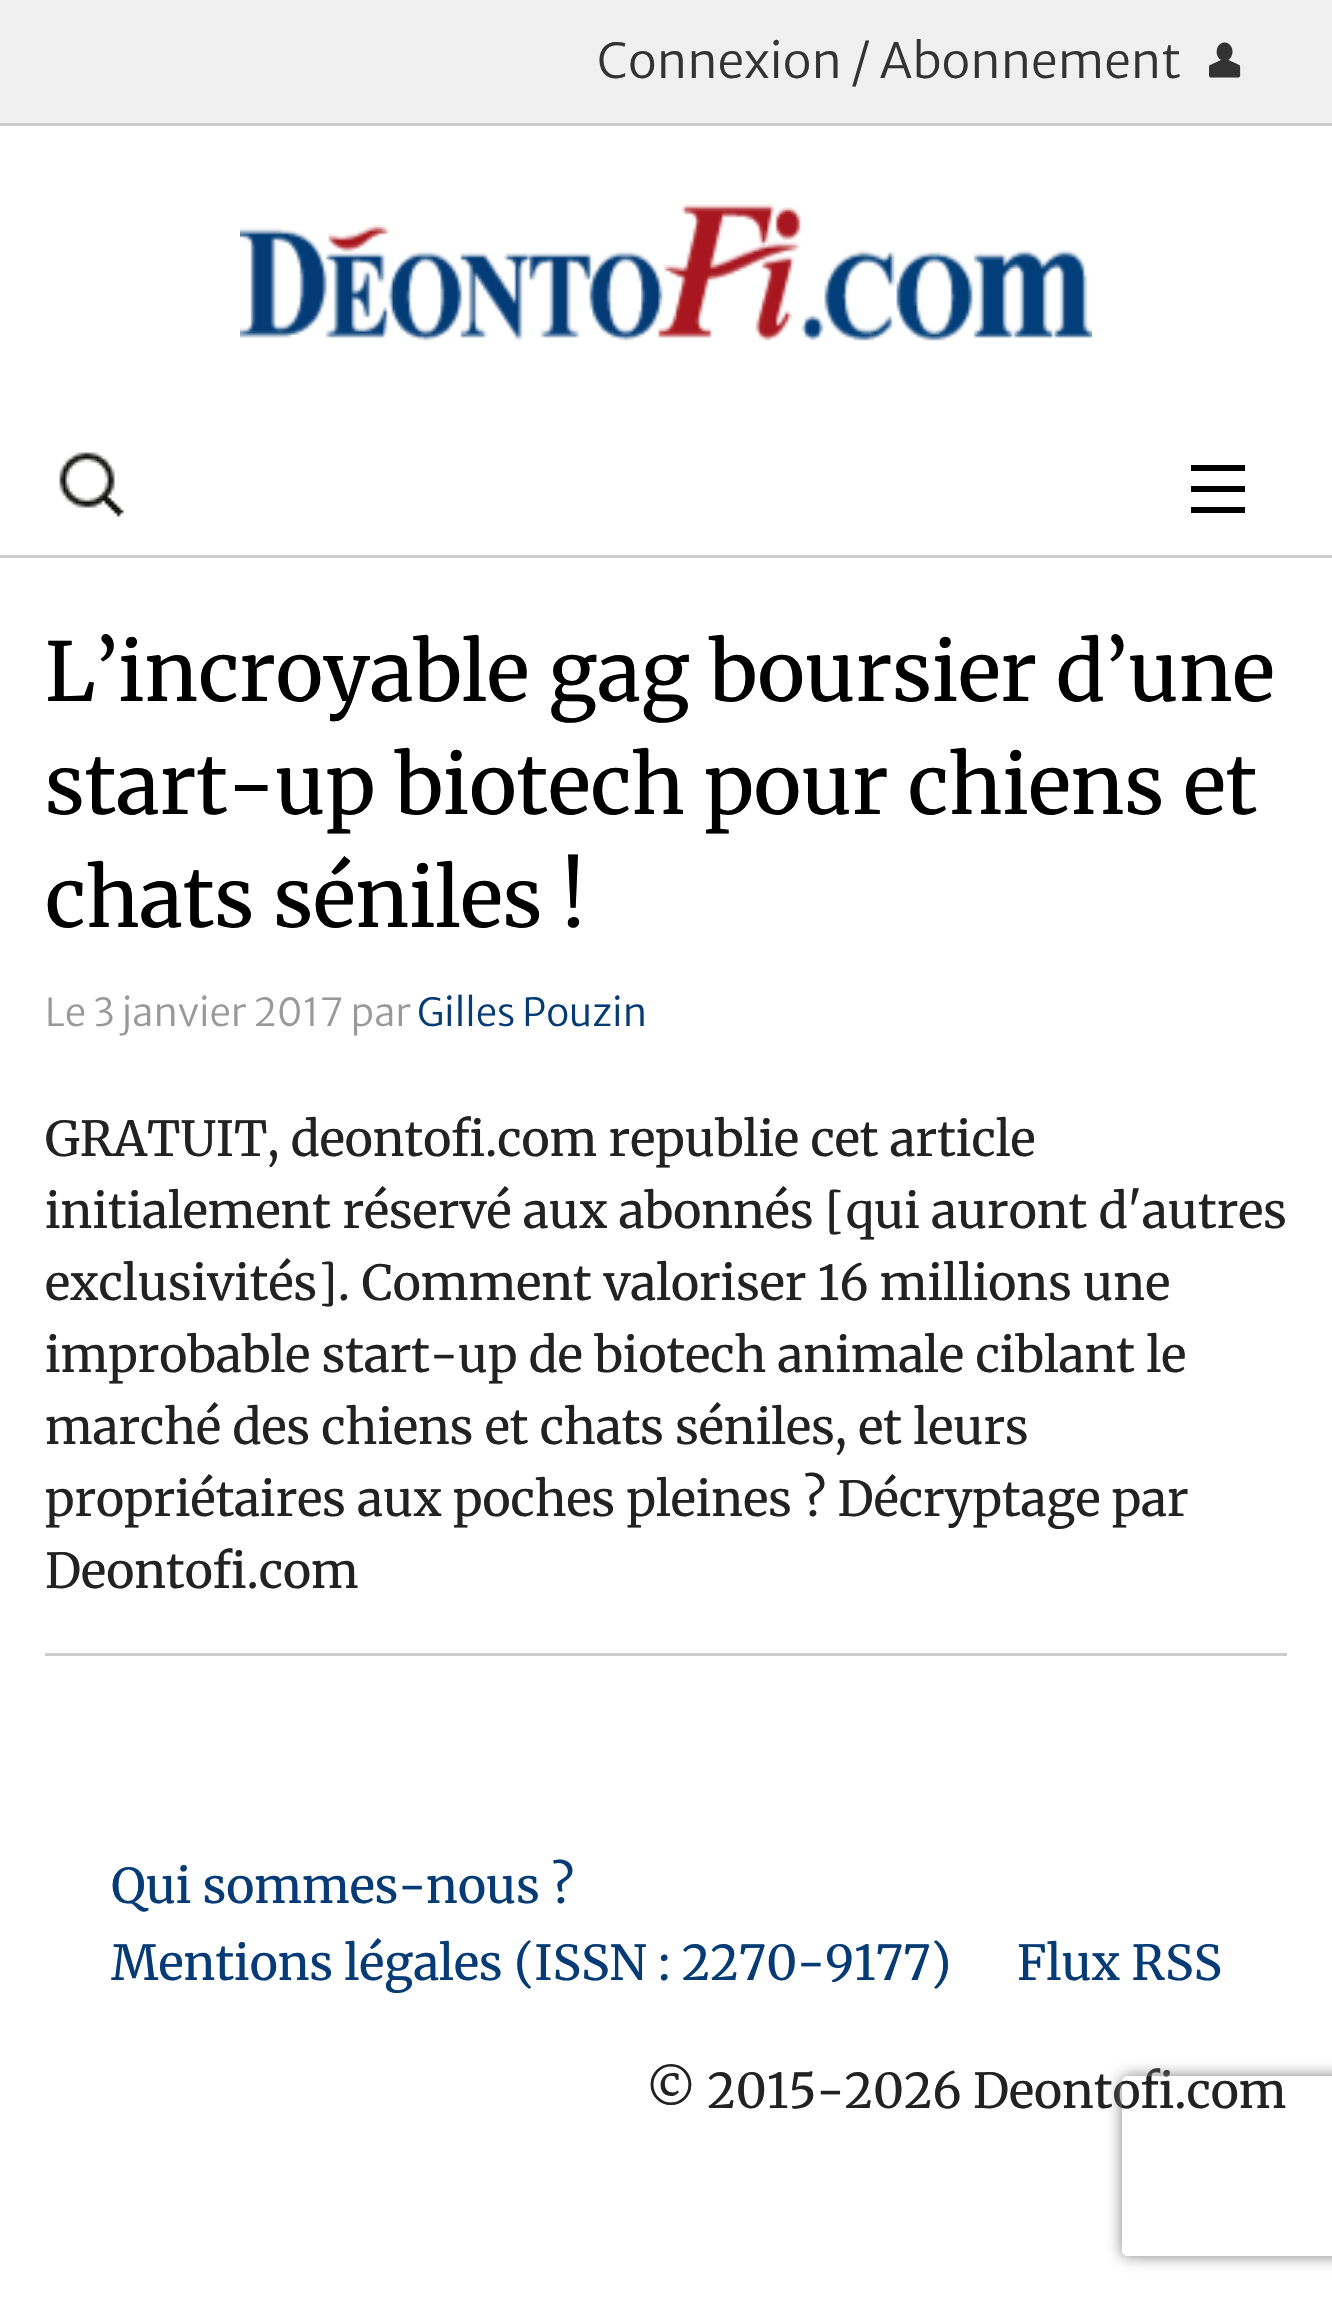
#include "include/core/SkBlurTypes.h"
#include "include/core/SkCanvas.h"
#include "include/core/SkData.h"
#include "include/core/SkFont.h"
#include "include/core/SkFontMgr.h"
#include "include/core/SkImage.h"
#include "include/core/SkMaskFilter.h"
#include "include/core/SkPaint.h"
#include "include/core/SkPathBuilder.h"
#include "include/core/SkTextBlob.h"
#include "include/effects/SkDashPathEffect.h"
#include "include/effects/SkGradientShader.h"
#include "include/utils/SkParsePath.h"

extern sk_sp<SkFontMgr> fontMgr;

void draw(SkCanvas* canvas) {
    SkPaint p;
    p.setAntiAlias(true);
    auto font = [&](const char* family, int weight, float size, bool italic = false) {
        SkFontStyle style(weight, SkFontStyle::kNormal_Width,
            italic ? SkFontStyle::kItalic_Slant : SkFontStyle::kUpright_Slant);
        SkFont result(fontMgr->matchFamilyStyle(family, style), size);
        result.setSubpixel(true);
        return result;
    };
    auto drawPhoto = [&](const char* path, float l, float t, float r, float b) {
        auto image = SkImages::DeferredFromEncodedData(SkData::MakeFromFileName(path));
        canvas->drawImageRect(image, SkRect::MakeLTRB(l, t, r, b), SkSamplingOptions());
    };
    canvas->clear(0xFFFFFFFF);
    p.setColor(0xFFF0F0F0);
    canvas->drawRect(SkRect::MakeLTRB(0, 0, 1332, 123), p);
    p.setColor(0xFFCCCCCC);
    canvas->drawRect(SkRect::MakeLTRB(0, 123, 1332, 126), p);
    auto font1 = font("Merriweather Sans", 300, 48);
    p.setColor(0xFF333333);
    canvas->drawString("Connexion / Abonnement", 597, 78, font1, p);
    drawPhoto("media/1.png", 1209, 42, 1241, 78);
    p.setColor(0xFFCCCCCC);
    canvas->drawRect(SkRect::MakeLTRB(0, 555, 1332, 558), p);
    drawPhoto("media/2.png", 240, 204, 1092, 341);
    drawPhoto("media/3.png", 59, 452, 124, 517);
    {
        const struct { float l, t, r, b; SkColor color; } items[] = {
            {1191, 507, 1245, 513, 0xFF000000},
            {1191, 486, 1245, 492, 0xFF000000},
            {1191, 465, 1245, 471, 0xFF000000},
            {45, 1653, 1287, 1656, 0xFFCCCCCC},
        };
        for (auto [l, t, r, b, color] : items) {
            p.setColor(color);
            canvas->drawRect(SkRect::MakeLTRB(l, t, r, b), p);
        }
    }
    auto font2 = font("Merriweather", 400, 81);
    p.setColor(0xFF000000);
    {
        const struct { const char* s; float x, y; } items[] = {
            {"L’incroyable gag boursier d’une", 45, 701},
            {"start-up biotech pour chiens et", 45, 814},
            {"chats séniles !", 45, 927},
        };
        for (auto [s, x, y] : items) {
            canvas->drawString(s, x, y, font2, p);
        }
    }
    auto font3 = font("Merriweather Sans", 300, 38.5f);
    p.setColor(0xFF999999);
    canvas->drawString("Le 3 janvier 2017 par", 45, 1026, font3, p);
    p.setColor(0xFF073B75);
    canvas->drawString("Gilles Pouzin", 417, 1026, font3, p);
    auto font4 = font("Merriweather", 400, 48);
    p.setColor(0xFF222222);
    {
        const struct { const char* s; float x, y; } items[] = {
            {"GRATUIT, deontofi.com republie cet article", 45, 1156},
            {"initialement réservé aux abonnés [qui auront d'autres", 45, 1228},
            {"exclusivités]. Comment valoriser 16 millions une", 45, 1300},
            {"improbable start-up de biotech animale ciblant le", 45, 1372},
            {"marché des chiens et chats séniles, et leurs", 45, 1444},
            {"propriétaires aux poches pleines ? Décryptage par", 45, 1516},
            {"Deontofi.com", 45, 1588},
        };
        for (auto [s, x, y] : items) {
            canvas->drawString(s, x, y, font4, p);
        }
    }
    p.setColor(0xFF073B75);
    {
        const struct { const char* s; float x, y; } items[] = {
            {"Qui sommes-nous ?", 111, 1903},
            {"Mentions légales (ISSN : 2270-9177)", 111, 1980},
            {"Flux RSS", 1017, 1980},
        };
        for (auto [s, x, y] : items) {
            canvas->drawString(s, x, y, font4, p);
        }
    }
    p.setColor(0xFF222222);
    canvas->drawString("© 2015-2026 Deontofi.com", 646, 2108, font4, p);
    canvas->save();
    canvas->clipPath(SkPathBuilder(SkPathFillType::kEvenOdd).moveTo(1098, 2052).lineTo(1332, 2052).lineTo(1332, 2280).lineTo(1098, 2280).close().moveTo(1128, 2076).lineTo(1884, 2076).cubicTo(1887.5f, 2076, 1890, 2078.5f, 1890, 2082).lineTo(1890, 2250).cubicTo(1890, 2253.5f, 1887.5f, 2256, 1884, 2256).lineTo(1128, 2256).cubicTo(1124.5f, 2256, 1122, 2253.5f, 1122, 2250).lineTo(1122, 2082).cubicTo(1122, 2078.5f, 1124.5f, 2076, 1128, 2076).close().detach(), true);
    p.setColor(0xFF808080);
    p.setMaskFilter(SkMaskFilter::MakeBlur(kNormal_SkBlurStyle, 7.5f));
    canvas->drawRoundRect(SkRect::MakeLTRB(1122, 2076, 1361, 2256), 6, 6, p);
    p.setMaskFilter(nullptr);
    canvas->restore();
}
